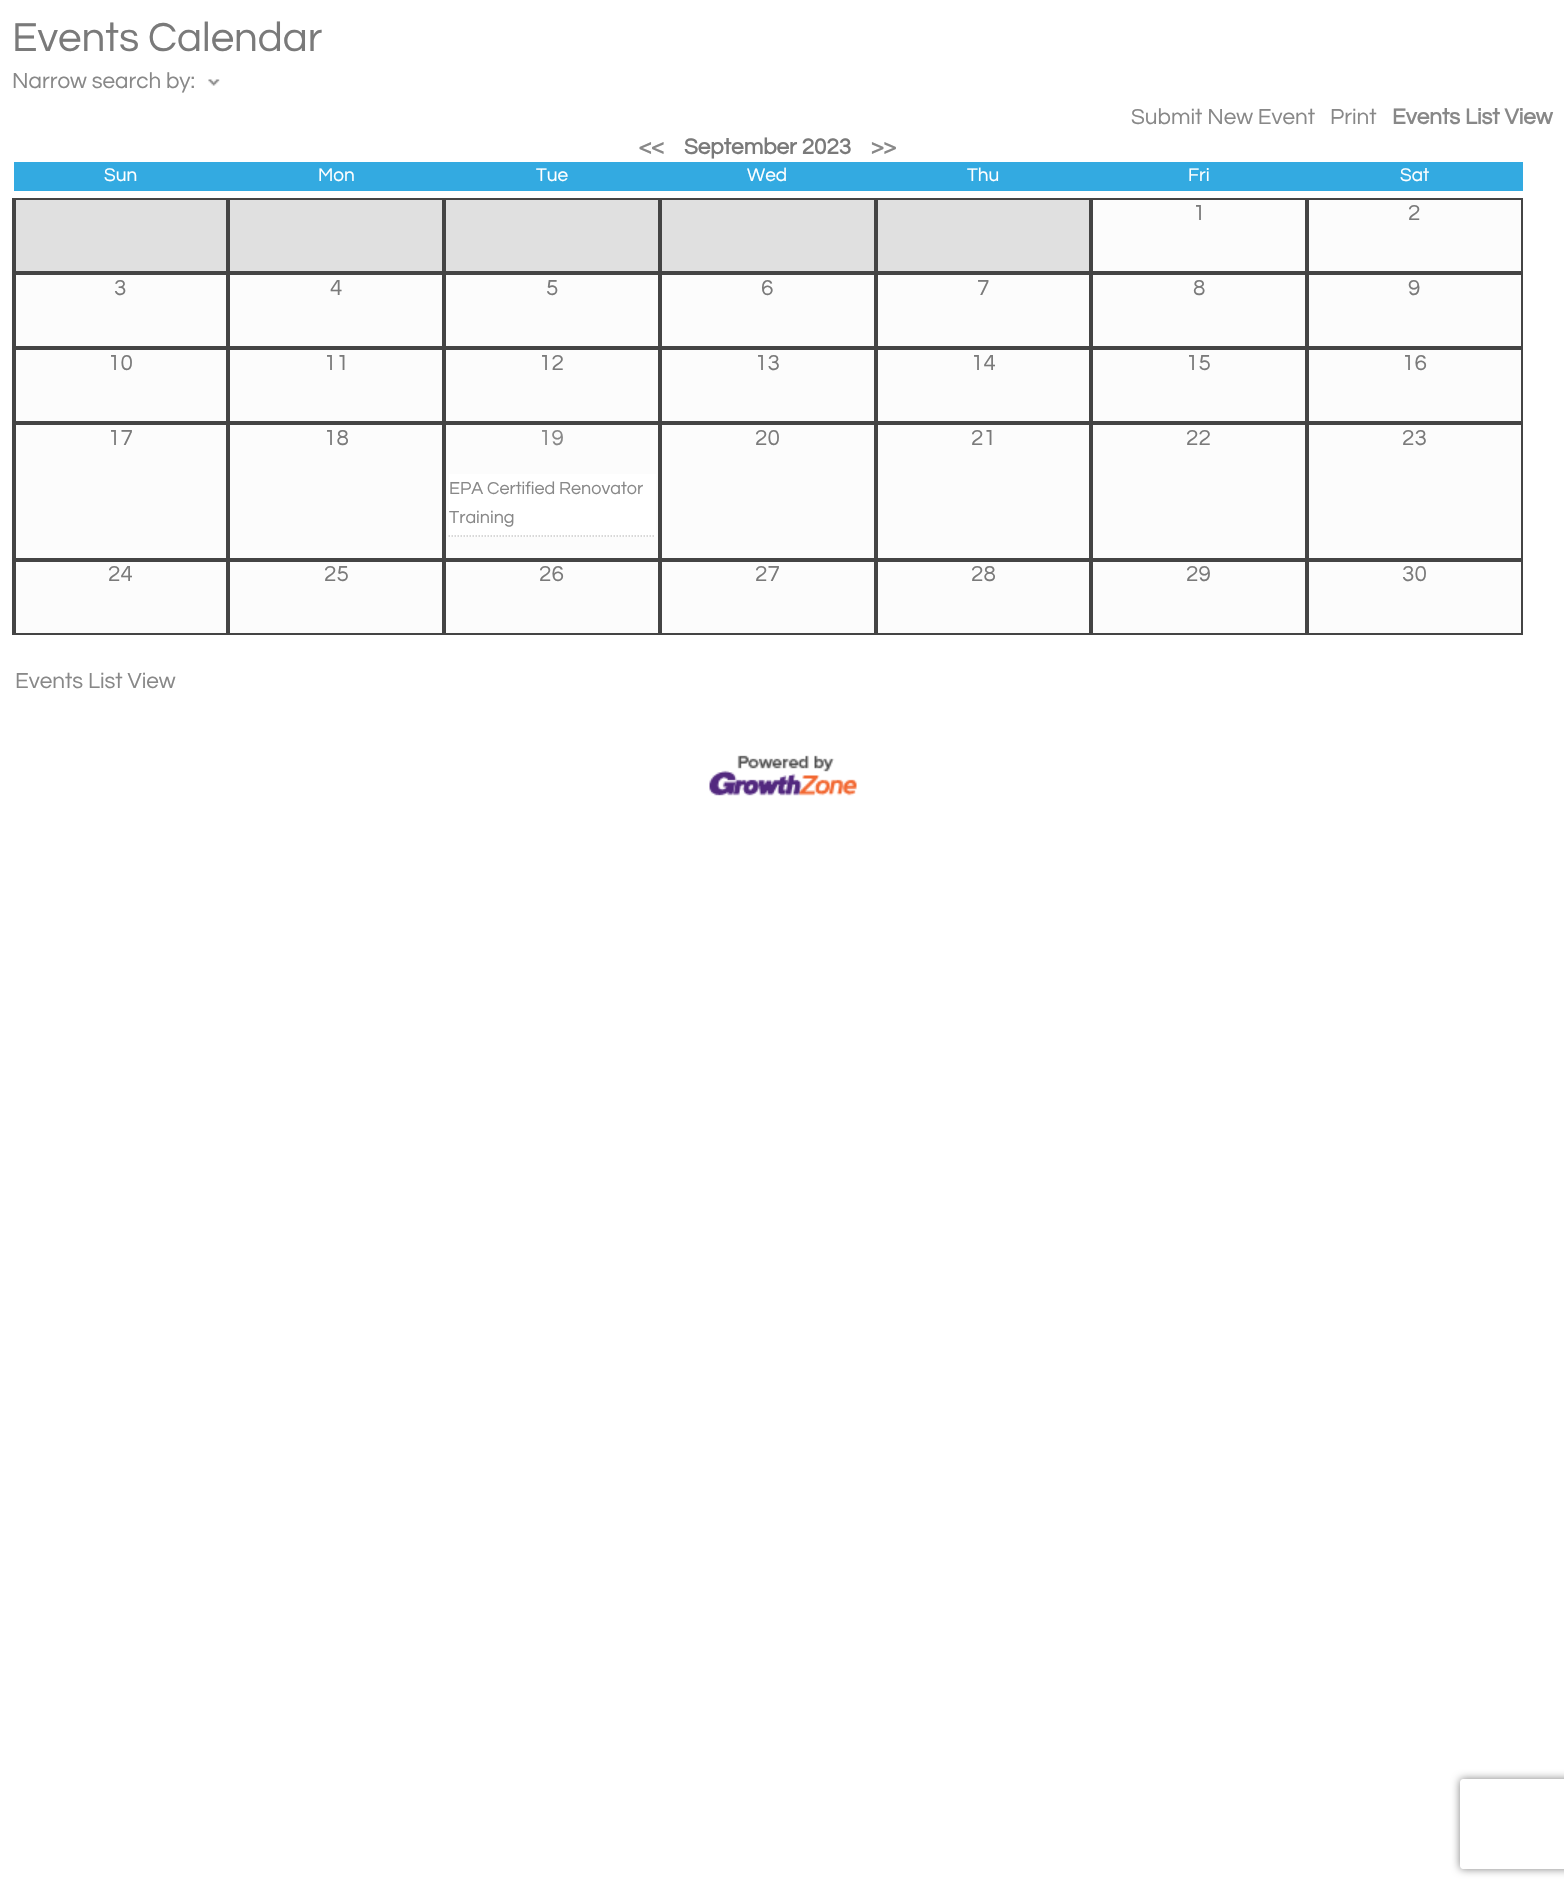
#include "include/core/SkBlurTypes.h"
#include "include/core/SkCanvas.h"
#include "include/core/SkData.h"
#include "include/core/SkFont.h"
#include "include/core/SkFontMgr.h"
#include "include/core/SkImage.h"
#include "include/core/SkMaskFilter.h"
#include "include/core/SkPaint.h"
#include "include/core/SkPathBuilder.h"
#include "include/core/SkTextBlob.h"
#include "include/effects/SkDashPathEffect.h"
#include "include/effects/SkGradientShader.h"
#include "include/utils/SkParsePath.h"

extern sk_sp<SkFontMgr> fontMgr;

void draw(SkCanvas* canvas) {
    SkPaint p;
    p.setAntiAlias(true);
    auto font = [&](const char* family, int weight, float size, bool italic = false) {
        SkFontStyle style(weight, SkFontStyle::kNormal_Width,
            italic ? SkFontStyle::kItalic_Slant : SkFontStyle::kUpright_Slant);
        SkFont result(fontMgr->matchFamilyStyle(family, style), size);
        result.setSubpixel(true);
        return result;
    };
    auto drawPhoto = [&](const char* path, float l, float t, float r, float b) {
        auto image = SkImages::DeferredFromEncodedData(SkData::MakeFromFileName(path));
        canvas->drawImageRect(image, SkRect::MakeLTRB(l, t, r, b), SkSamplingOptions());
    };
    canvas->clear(0xFFFFFFFF);
    auto font1 = font("Questrial", 400, 42);
    p.setColor(0xFF7A7A7A);
    canvas->drawString("Events Calendar", 12, 51, font1, p);
    auto font2 = font("Questrial", 400, 22.5f);
    p.setColor(0xFF888888);
    canvas->drawString("Narrow search by:", 12, 88, font2, p);
    drawPhoto("media/1.png", 208, 79, 220, 86);
    canvas->drawString("Submit New Event", 1131, 124, font2, p);
    canvas->drawString("Print", 1330, 124, font2, p);
    auto font3 = font("Questrial", 700, 22.5f);
    canvas->drawString("Events List View", 1392, 124, font3, p);
    canvas->drawString("<<", 639, 154, font3, p);
    p.setColor(0xFF7A7A7A);
    canvas->drawString("September 2023", 684, 154, font3, p);
    p.setColor(0xFF888888);
    canvas->drawString(">>", 871, 154, font3, p);
    p.setColor(0xFF33AAE1);
    canvas->drawRect(SkRect::MakeLTRB(14, 162, 1523, 191), p);
    auto font4 = font("Questrial", 400, 19);
    p.setColor(0xFFFFFFFF);
    {
        const struct { const char* s; float x, y; } items[] = {
            {"Sun", 104, 181},
            {"Mon", 318, 181},
            {"Tue", 536, 181},
            {"Wed", 747, 181},
            {"Thu", 967, 181},
            {"Fri", 1188, 181},
            {"Sat", 1400, 181},
        };
        for (auto [s, x, y] : items) {
            canvas->drawString(s, x, y, font4, p);
        }
    }
    p.setColor(0xFFFCFCFC);
    canvas->drawRect(SkRect::MakeLTRB(1093, 200, 1521, 271), p);
    p.setColor(0xFFE0E0E0);
    canvas->drawRect(SkRect::MakeLTRB(15, 199, 227, 272), p);
    p.setStyle(SkPaint::kStroke_Style);
    p.setStrokeWidth(2);
    p.setColor(0xFF444444);
    canvas->drawRect(SkRect::MakeLTRB(15, 199, 227, 272), p);
    p.setStyle(SkPaint::kFill_Style);
    {
        const struct { float l, t, r, b; SkColor color; } items[] = {
            {12, 558, 14, 560, 0xFF444444},
            {12, 558, 14, 635, 0xFF444444},
            {12, 423, 14, 560, 0xFF444444},
            {12, 348, 14, 425, 0xFF444444},
            {12, 273, 14, 350, 0xFF444444},
            {12, 198, 14, 275, 0xFF444444},
        };
        for (auto [l, t, r, b, color] : items) {
            p.setColor(color);
            canvas->drawRect(SkRect::MakeLTRB(l, t, r, b), p);
        }
    }
    p.setColor(0xFFE0E0E0);
    canvas->drawRect(SkRect::MakeLTRB(229, 199, 443, 272), p);
    p.setStyle(SkPaint::kStroke_Style);
    p.setColor(0xFF444444);
    canvas->drawRect(SkRect::MakeLTRB(229, 199, 443, 272), p);
    p.setStyle(SkPaint::kFill_Style);
    p.setColor(0xFFE0E0E0);
    canvas->drawRect(SkRect::MakeLTRB(445, 199, 659, 272), p);
    p.setStyle(SkPaint::kStroke_Style);
    p.setColor(0xFF444444);
    canvas->drawRect(SkRect::MakeLTRB(445, 199, 659, 272), p);
    p.setStyle(SkPaint::kFill_Style);
    p.setColor(0xFFE0E0E0);
    canvas->drawRect(SkRect::MakeLTRB(661, 199, 875, 272), p);
    p.setStyle(SkPaint::kStroke_Style);
    p.setColor(0xFF444444);
    canvas->drawRect(SkRect::MakeLTRB(661, 199, 875, 272), p);
    p.setStyle(SkPaint::kFill_Style);
    p.setColor(0xFFE0E0E0);
    canvas->drawRect(SkRect::MakeLTRB(877, 199, 1090, 272), p);
    p.setStyle(SkPaint::kStroke_Style);
    p.setColor(0xFF444444);
    canvas->drawRect(SkRect::MakeLTRB(877, 199, 1090, 272), p);
    canvas->drawRect(SkRect::MakeLTRB(1092, 199, 1306, 272), p);
    p.setStyle(SkPaint::kFill_Style);
    p.setColor(0xFF7A7A7A);
    canvas->drawString("1", 1193, 220, font2, p);
    p.setStyle(SkPaint::kStroke_Style);
    p.setColor(0xFF444444);
    canvas->drawRect(SkRect::MakeLTRB(1308, 199, 1522, 272), p);
    p.setStyle(SkPaint::kFill_Style);
    p.setColor(0xFF7A7A7A);
    canvas->drawString("2", 1408, 220, font2, p);
    p.setColor(0xFFFCFCFC);
    canvas->drawRect(SkRect::MakeLTRB(16, 275, 1521, 346), p);
    p.setStyle(SkPaint::kStroke_Style);
    p.setColor(0xFF444444);
    canvas->drawRect(SkRect::MakeLTRB(15, 274, 227, 347), p);
    p.setStyle(SkPaint::kFill_Style);
    p.setColor(0xFF7A7A7A);
    canvas->drawString("3", 114, 295, font2, p);
    p.setStyle(SkPaint::kStroke_Style);
    p.setColor(0xFF444444);
    canvas->drawRect(SkRect::MakeLTRB(229, 274, 443, 347), p);
    p.setStyle(SkPaint::kFill_Style);
    p.setColor(0xFF7A7A7A);
    canvas->drawString("4", 330, 295, font2, p);
    p.setStyle(SkPaint::kStroke_Style);
    p.setColor(0xFF444444);
    canvas->drawRect(SkRect::MakeLTRB(445, 274, 659, 347), p);
    p.setStyle(SkPaint::kFill_Style);
    p.setColor(0xFF7A7A7A);
    canvas->drawString("5", 546, 295, font2, p);
    p.setStyle(SkPaint::kStroke_Style);
    p.setColor(0xFF444444);
    canvas->drawRect(SkRect::MakeLTRB(661, 274, 875, 347), p);
    p.setStyle(SkPaint::kFill_Style);
    p.setColor(0xFF7A7A7A);
    canvas->drawString("6", 761, 295, font2, p);
    p.setStyle(SkPaint::kStroke_Style);
    p.setColor(0xFF444444);
    canvas->drawRect(SkRect::MakeLTRB(877, 274, 1090, 347), p);
    p.setStyle(SkPaint::kFill_Style);
    p.setColor(0xFF7A7A7A);
    canvas->drawString("7", 977, 295, font2, p);
    p.setStyle(SkPaint::kStroke_Style);
    p.setColor(0xFF444444);
    canvas->drawRect(SkRect::MakeLTRB(1092, 274, 1306, 347), p);
    p.setStyle(SkPaint::kFill_Style);
    p.setColor(0xFF7A7A7A);
    canvas->drawString("8", 1193, 295, font2, p);
    p.setStyle(SkPaint::kStroke_Style);
    p.setColor(0xFF444444);
    canvas->drawRect(SkRect::MakeLTRB(1308, 274, 1522, 347), p);
    p.setStyle(SkPaint::kFill_Style);
    p.setColor(0xFF7A7A7A);
    canvas->drawString("9", 1408, 295, font2, p);
    p.setColor(0xFFFCFCFC);
    canvas->drawRect(SkRect::MakeLTRB(16, 350, 1521, 421), p);
    p.setStyle(SkPaint::kStroke_Style);
    p.setColor(0xFF444444);
    canvas->drawRect(SkRect::MakeLTRB(15, 349, 227, 422), p);
    p.setStyle(SkPaint::kFill_Style);
    p.setColor(0xFF7A7A7A);
    canvas->drawString("10", 108, 370, font2, p);
    p.setStyle(SkPaint::kStroke_Style);
    p.setColor(0xFF444444);
    canvas->drawRect(SkRect::MakeLTRB(229, 349, 443, 422), p);
    p.setStyle(SkPaint::kFill_Style);
    p.setColor(0xFF7A7A7A);
    canvas->drawString("11", 324, 370, font2, p);
    p.setStyle(SkPaint::kStroke_Style);
    p.setColor(0xFF444444);
    canvas->drawRect(SkRect::MakeLTRB(445, 349, 659, 422), p);
    p.setStyle(SkPaint::kFill_Style);
    p.setColor(0xFF7A7A7A);
    canvas->drawString("12", 539, 370, font2, p);
    p.setStyle(SkPaint::kStroke_Style);
    p.setColor(0xFF444444);
    canvas->drawRect(SkRect::MakeLTRB(661, 349, 875, 422), p);
    p.setStyle(SkPaint::kFill_Style);
    p.setColor(0xFF7A7A7A);
    canvas->drawString("13", 755, 370, font2, p);
    p.setStyle(SkPaint::kStroke_Style);
    p.setColor(0xFF444444);
    canvas->drawRect(SkRect::MakeLTRB(877, 349, 1090, 422), p);
    p.setStyle(SkPaint::kFill_Style);
    p.setColor(0xFF7A7A7A);
    canvas->drawString("14", 971, 370, font2, p);
    p.setStyle(SkPaint::kStroke_Style);
    p.setColor(0xFF444444);
    canvas->drawRect(SkRect::MakeLTRB(1092, 349, 1306, 422), p);
    p.setStyle(SkPaint::kFill_Style);
    p.setColor(0xFF7A7A7A);
    canvas->drawString("15", 1186, 370, font2, p);
    p.setStyle(SkPaint::kStroke_Style);
    p.setColor(0xFF444444);
    canvas->drawRect(SkRect::MakeLTRB(1308, 349, 1522, 422), p);
    p.setStyle(SkPaint::kFill_Style);
    p.setColor(0xFF7A7A7A);
    canvas->drawString("16", 1402, 370, font2, p);
    p.setColor(0xFFFCFCFC);
    canvas->drawRect(SkRect::MakeLTRB(16, 425, 1521, 558), p);
    p.setStyle(SkPaint::kStroke_Style);
    p.setColor(0xFF444444);
    canvas->drawRect(SkRect::MakeLTRB(15, 424, 227, 559), p);
    p.setStyle(SkPaint::kFill_Style);
    p.setColor(0xFF7A7A7A);
    canvas->drawString("17", 108, 445, font2, p);
    p.setStyle(SkPaint::kStroke_Style);
    p.setColor(0xFF444444);
    canvas->drawRect(SkRect::MakeLTRB(229, 424, 443, 559), p);
    p.setStyle(SkPaint::kFill_Style);
    p.setColor(0xFF7A7A7A);
    canvas->drawString("18", 324, 445, font2, p);
    p.setStyle(SkPaint::kStroke_Style);
    p.setColor(0xFF444444);
    canvas->drawRect(SkRect::MakeLTRB(445, 424, 659, 559), p);
    p.setStyle(SkPaint::kFill_Style);
    p.setColor(0xFF888888);
    canvas->drawString("19", 539, 445, font2, p);
    p.setColor(0xFFFFFFFF);
    canvas->drawRect(SkRect::MakeLTRB(449, 474, 656, 537), p);
    p.setStyle(SkPaint::kStroke_Style);
    p.setStrokeWidth(1.5f);
    p.setColor(0xFFCCCCCC);
    p.setPathEffect(SkDashPathEffect::Make({{1.5f, 1.5f}}, 0));
    canvas->drawPath(SkPathBuilder().moveTo(448.5f, 536).lineTo(655.5f, 536).detach(), p);
    p.setPathEffect(nullptr);
    auto font5 = font("Questrial", 400, 18);
    p.setStyle(SkPaint::kFill_Style);
    p.setColor(0xFF888888);
    canvas->drawString("EPA Certified Renovator", 449, 494, font5, p);
    canvas->drawString("Training", 449, 523, font5, p);
    p.setStyle(SkPaint::kStroke_Style);
    p.setStrokeWidth(2);
    p.setColor(0xFF444444);
    canvas->drawRect(SkRect::MakeLTRB(661, 424, 875, 559), p);
    p.setStyle(SkPaint::kFill_Style);
    p.setColor(0xFF7A7A7A);
    canvas->drawString("20", 755, 445, font2, p);
    p.setStyle(SkPaint::kStroke_Style);
    p.setColor(0xFF444444);
    canvas->drawRect(SkRect::MakeLTRB(877, 424, 1090, 559), p);
    p.setStyle(SkPaint::kFill_Style);
    p.setColor(0xFF7A7A7A);
    canvas->drawString("21", 971, 445, font2, p);
    p.setStyle(SkPaint::kStroke_Style);
    p.setColor(0xFF444444);
    canvas->drawRect(SkRect::MakeLTRB(1092, 424, 1306, 559), p);
    p.setStyle(SkPaint::kFill_Style);
    p.setColor(0xFF7A7A7A);
    canvas->drawString("22", 1186, 445, font2, p);
    p.setStyle(SkPaint::kStroke_Style);
    p.setColor(0xFF444444);
    canvas->drawRect(SkRect::MakeLTRB(1308, 424, 1522, 559), p);
    p.setStyle(SkPaint::kFill_Style);
    p.setColor(0xFF7A7A7A);
    canvas->drawString("23", 1402, 445, font2, p);
    p.setColor(0xFFFCFCFC);
    canvas->drawRect(SkRect::MakeLTRB(16, 562, 1521, 633), p);
    p.setStyle(SkPaint::kStroke_Style);
    p.setColor(0xFF444444);
    canvas->drawRect(SkRect::MakeLTRB(15, 561, 227, 634), p);
    p.setStyle(SkPaint::kFill_Style);
    p.setColor(0xFF7A7A7A);
    canvas->drawString("24", 108, 581, font2, p);
    p.setStyle(SkPaint::kStroke_Style);
    p.setColor(0xFF444444);
    canvas->drawRect(SkRect::MakeLTRB(229, 561, 443, 634), p);
    p.setStyle(SkPaint::kFill_Style);
    p.setColor(0xFF7A7A7A);
    canvas->drawString("25", 324, 581, font2, p);
    p.setStyle(SkPaint::kStroke_Style);
    p.setColor(0xFF444444);
    canvas->drawRect(SkRect::MakeLTRB(445, 561, 659, 634), p);
    p.setStyle(SkPaint::kFill_Style);
    p.setColor(0xFF7A7A7A);
    canvas->drawString("26", 539, 581, font2, p);
    p.setStyle(SkPaint::kStroke_Style);
    p.setColor(0xFF444444);
    canvas->drawRect(SkRect::MakeLTRB(661, 561, 875, 634), p);
    p.setStyle(SkPaint::kFill_Style);
    p.setColor(0xFF7A7A7A);
    canvas->drawString("27", 755, 581, font2, p);
    p.setStyle(SkPaint::kStroke_Style);
    p.setColor(0xFF444444);
    canvas->drawRect(SkRect::MakeLTRB(877, 561, 1090, 634), p);
    p.setStyle(SkPaint::kFill_Style);
    p.setColor(0xFF7A7A7A);
    canvas->drawString("28", 971, 581, font2, p);
    p.setStyle(SkPaint::kStroke_Style);
    p.setColor(0xFF444444);
    canvas->drawRect(SkRect::MakeLTRB(1092, 561, 1306, 634), p);
    p.setStyle(SkPaint::kFill_Style);
    p.setColor(0xFF7A7A7A);
    canvas->drawString("29", 1186, 581, font2, p);
    p.setStyle(SkPaint::kStroke_Style);
    p.setColor(0xFF444444);
    canvas->drawRect(SkRect::MakeLTRB(1308, 561, 1522, 634), p);
    p.setStyle(SkPaint::kFill_Style);
    p.setColor(0xFF7A7A7A);
    canvas->drawString("30", 1402, 581, font2, p);
    p.setColor(0xFF888888);
    canvas->drawString("Events List View", 15, 688, font2, p);
    drawPhoto("media/2.png", 709, 755, 857, 796);
    canvas->save();
    canvas->clipPath(SkPathBuilder(SkPathFillType::kEvenOdd).moveTo(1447, 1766).lineTo(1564, 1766).lineTo(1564, 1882).lineTo(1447, 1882).close().moveTo(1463, 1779).lineTo(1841, 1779).cubicTo(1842.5f, 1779, 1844, 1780.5f, 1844, 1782).lineTo(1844, 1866).cubicTo(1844, 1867.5f, 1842.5f, 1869, 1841, 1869).lineTo(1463, 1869).cubicTo(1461.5f, 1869, 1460, 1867.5f, 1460, 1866).lineTo(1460, 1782).cubicTo(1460, 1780.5f, 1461.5f, 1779, 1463, 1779).close().detach(), true);
    p.setColor(0xFF808080);
    p.setMaskFilter(SkMaskFilter::MakeBlur(kNormal_SkBlurStyle, 4));
    canvas->drawRoundRect(SkRect::MakeLTRB(1460, 1779, 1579, 1869), 3, 3, p);
    p.setMaskFilter(nullptr);
    canvas->restore();
}
